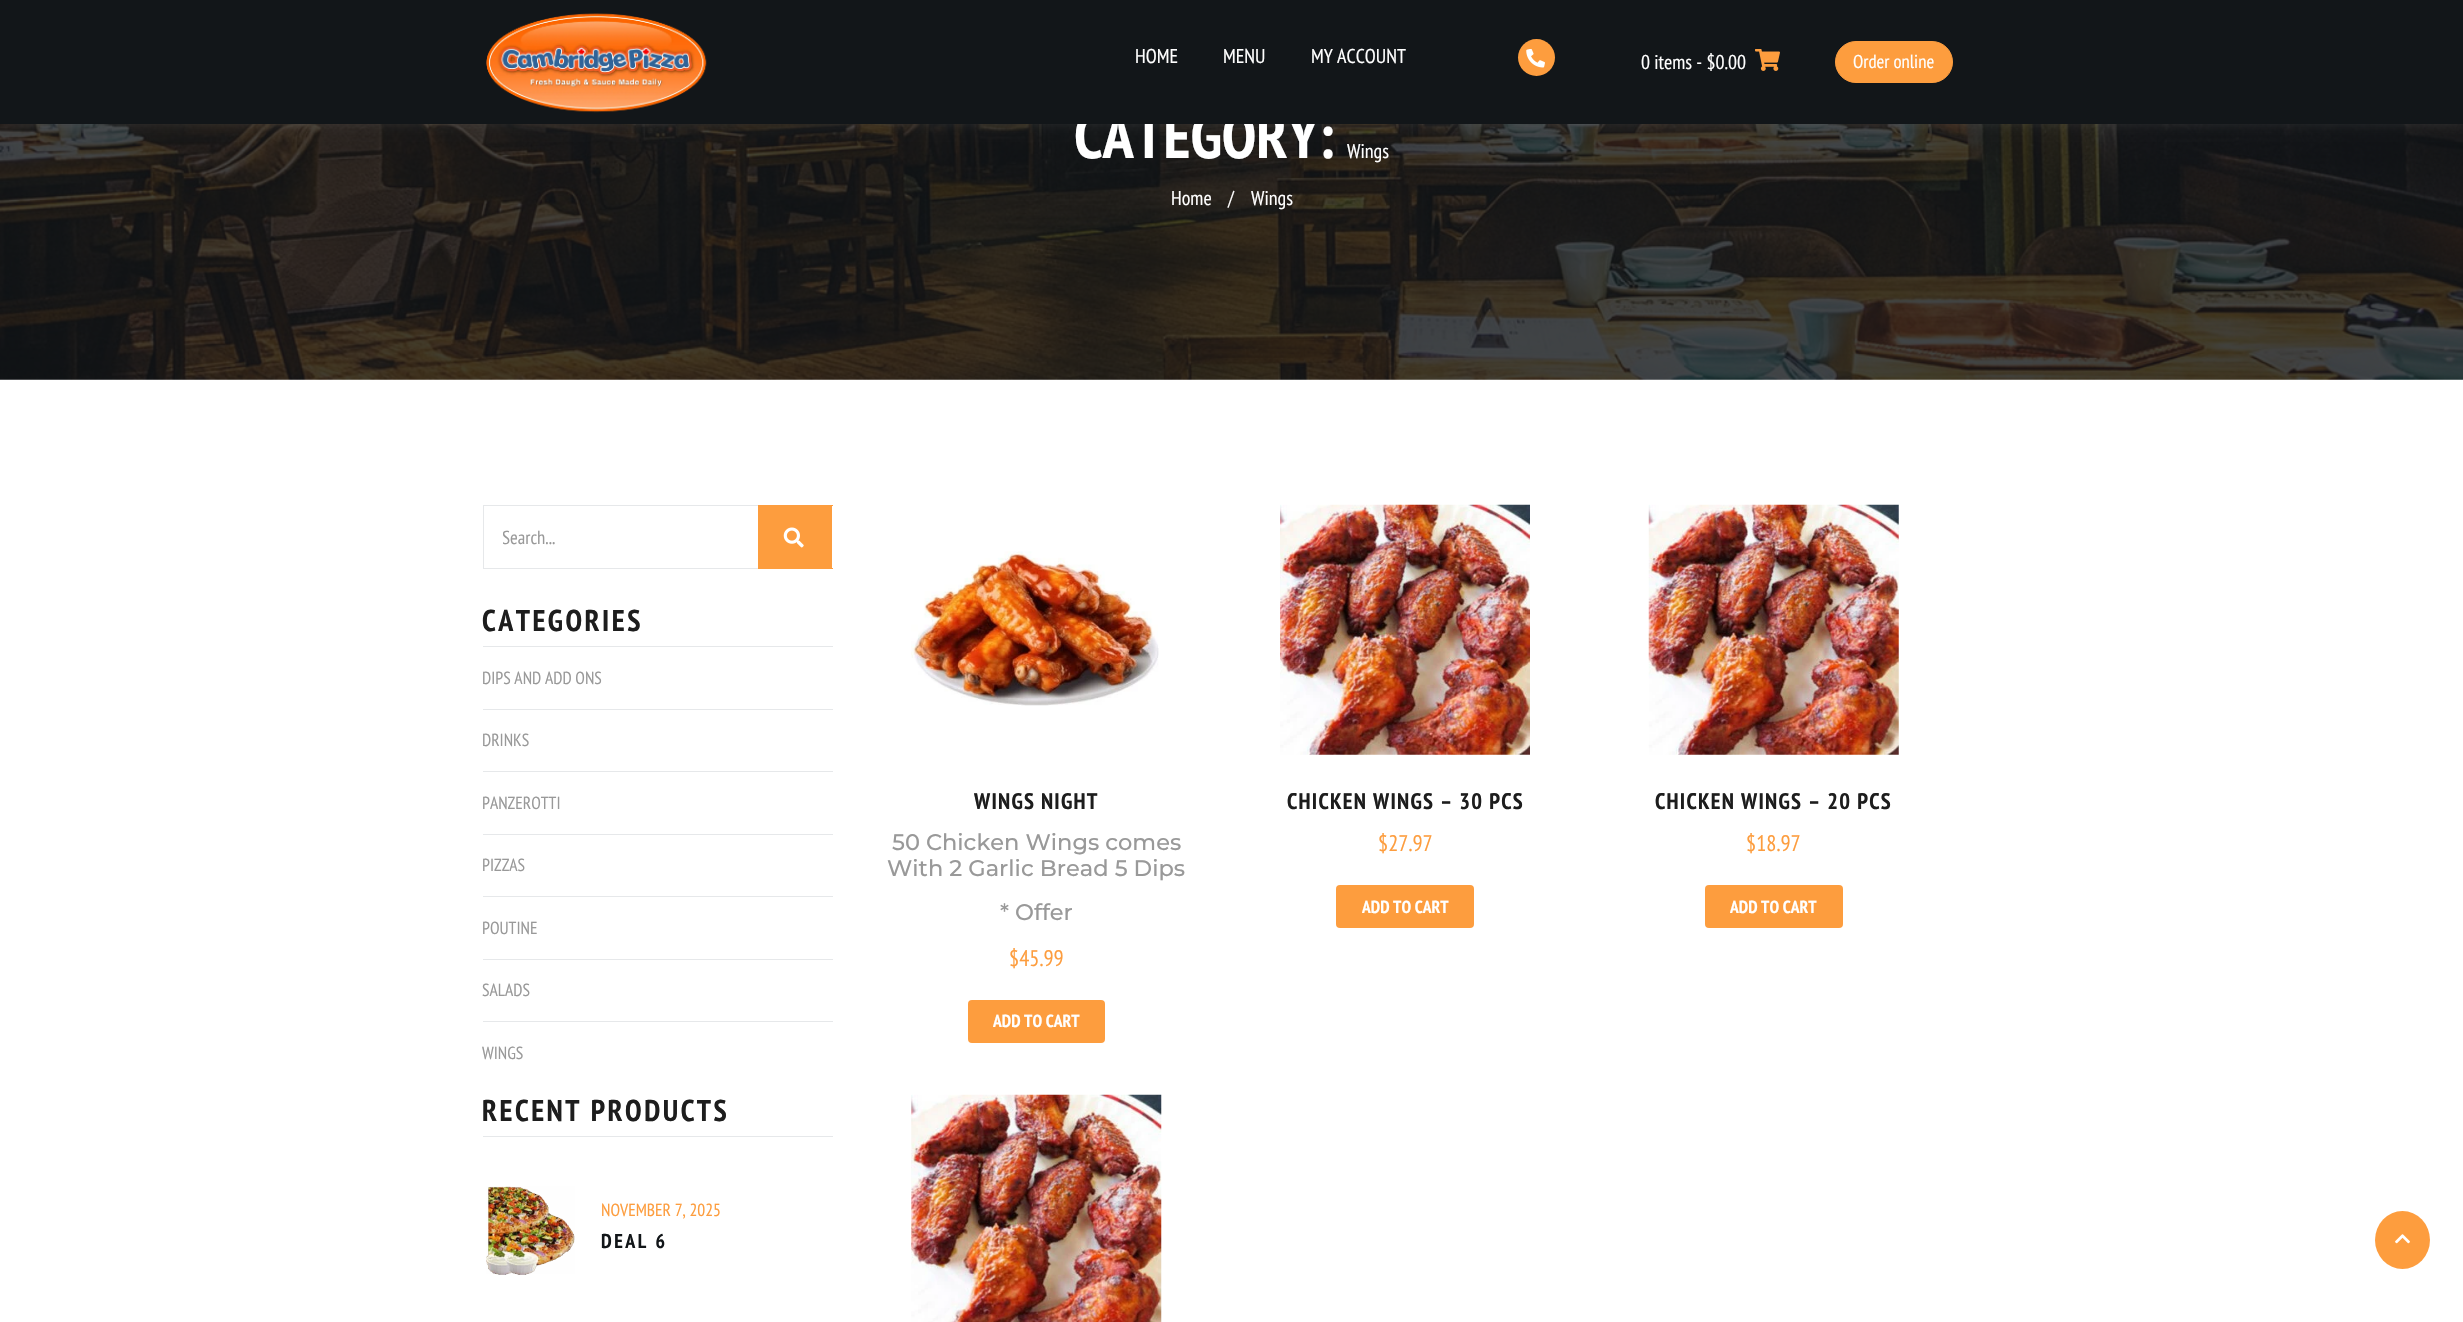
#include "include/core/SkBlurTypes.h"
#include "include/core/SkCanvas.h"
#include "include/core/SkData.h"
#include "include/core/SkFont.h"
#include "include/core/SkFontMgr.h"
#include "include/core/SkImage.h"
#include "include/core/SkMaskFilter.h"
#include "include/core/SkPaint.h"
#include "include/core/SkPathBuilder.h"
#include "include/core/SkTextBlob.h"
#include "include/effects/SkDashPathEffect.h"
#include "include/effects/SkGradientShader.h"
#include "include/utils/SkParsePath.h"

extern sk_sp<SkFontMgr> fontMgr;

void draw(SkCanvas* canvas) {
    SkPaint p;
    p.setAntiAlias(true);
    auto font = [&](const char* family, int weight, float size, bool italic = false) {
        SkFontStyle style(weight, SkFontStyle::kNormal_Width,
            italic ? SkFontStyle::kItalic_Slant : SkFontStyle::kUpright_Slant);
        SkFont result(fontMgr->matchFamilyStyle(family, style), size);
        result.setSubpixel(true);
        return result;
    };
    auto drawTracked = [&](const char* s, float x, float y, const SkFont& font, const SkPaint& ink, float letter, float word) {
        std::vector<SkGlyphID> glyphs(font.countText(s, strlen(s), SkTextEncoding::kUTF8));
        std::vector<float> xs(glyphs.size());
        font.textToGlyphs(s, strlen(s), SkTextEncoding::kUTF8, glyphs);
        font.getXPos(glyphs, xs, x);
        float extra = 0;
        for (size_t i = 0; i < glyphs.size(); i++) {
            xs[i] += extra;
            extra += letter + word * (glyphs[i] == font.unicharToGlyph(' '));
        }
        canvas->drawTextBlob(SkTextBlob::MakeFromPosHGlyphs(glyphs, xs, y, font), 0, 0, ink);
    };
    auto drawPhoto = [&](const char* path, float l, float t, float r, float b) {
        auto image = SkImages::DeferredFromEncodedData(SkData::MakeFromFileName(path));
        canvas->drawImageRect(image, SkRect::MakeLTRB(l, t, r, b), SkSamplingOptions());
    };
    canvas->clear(0xFFFFFFFF);
    drawPhoto("media/4.png", 0, 124, 2463, 380);
    p.setColor(0x1AFFFFFF);
    p.setMaskFilter(SkMaskFilter::MakeBlur(kNormal_SkBlurStyle, 6));
    canvas->drawRect(SkRect::MakeLTRB(0, 0, 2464, 124), p);
    p.setMaskFilter(nullptr);
    auto font1 = font("PT Sans Narrow", 700, 62.5f);
    p.setColor(0xFFFFFFFF);
    canvas->drawString("CATEGORY:", 1074, 158, font1, p);
    p.setColor(0xFF121619);
    canvas->drawRect(SkRect::MakeLTRB(0, 0, 2463, 124), p);
    drawPhoto("media/1.png", 486, 13, 707, 113);
    auto font2 = font("PT Sans Narrow", 400, 20);
    p.setColor(0xFFFFFFFF);
    {
        const struct { const char* s; float x, y; } items[] = {
            {"HOME", 1135, 63},
            {"MENU", 1223, 63},
            {"MY ACCOUNT", 1311, 63},
        };
        for (auto [s, x, y] : items) {
            canvas->drawString(s, x, y, font2, p);
        }
    }
    p.setColor(0xFFFD9D3E);
    canvas->drawCircle(1536.5f, 57.5f, 18.5f, p);
    drawPhoto("media/2.png", 1526, 49, 1545, 68);
    p.setColor(0xFFFFFFFF);
    canvas->drawString("0 items - $0.00", 1641, 69, font2, p);
    drawPhoto("media/3.png", 1755, 49, 1780, 71);
    p.setColor(0xFFFD9D3E);
    canvas->drawRoundRect(SkRect::MakeLTRB(1835.5f, 41.5f, 1952.5f, 82.5f), 20.5f, 20.5f, p);
    p.setStyle(SkPaint::kStroke_Style);
    p.setStrokeWidth(1);
    canvas->drawRoundRect(SkRect::MakeLTRB(1835.5f, 41.5f, 1952.5f, 82.5f), 20.5f, 20.5f, p);
    auto font3 = font("PT Sans Narrow", 400, 18.75f);
    p.setStyle(SkPaint::kFill_Style);
    p.setColor(0xFFFFFFFF);
    canvas->drawString("Order online", 1853, 68, font3, p);
    {
        const struct { const char* s; float x, y; } items[] = {
            {"Wings", 1347, 158},
            {"Home", 1171, 205},
            {"/", 1228, 205},
            {"Wings", 1251, 205},
        };
        for (auto [s, x, y] : items) {
            canvas->drawString(s, x, y, font2, p);
        }
    }
    {
        const struct { float l, t, r, b; SkColor color; } items[] = {
            {483, 505, 758, 506, 0xFFE6E8EA},
            {483, 568, 758, 569, 0xFFE6E8EA},
            {483, 505, 484, 569, 0xFFE6E8EA},
        };
        for (auto [l, t, r, b, color] : items) {
            p.setColor(color);
            canvas->drawRect(SkRect::MakeLTRB(l, t, r, b), p);
        }
    }
    canvas->save();
    canvas->clipRect(SkRect::MakeLTRB(503, 525, 734, 549));
    p.setColor(0xFF999999);
    canvas->drawString("Search...", 502, 544, font3, p);
    canvas->restore();
    {
        const struct { float l, t, r, b; SkColor color; } items[] = {
            {758, 506, 831, 568, 0xFFFD9D3E},
            {758, 505, 833, 506, 0xFFFD9D3E},
            {831, 505, 832, 569, 0xFFFD9D3E},
            {758, 568, 833, 569, 0xFFFD9D3E},
        };
        for (auto [l, t, r, b, color] : items) {
            p.setColor(color);
            canvas->drawRect(SkRect::MakeLTRB(l, t, r, b), p);
        }
    }
    drawPhoto("media/5.png", 783, 527, 804, 548);
    auto font4 = font("PT Sans Narrow", 700, 30);
    p.setColor(0xFF1D1D1D);
    drawTracked("CATEGORIES", 482, 631, font4, p, 2.5f, 0);
    p.setColor(0xFFE6E8EA);
    canvas->drawRect(SkRect::MakeLTRB(483, 646, 833, 647), p);
    auto font5 = font("PT Sans Narrow", 400, 17.5f);
    p.setColor(0xFF999999);
    canvas->drawString("DIPS AND ADD ONS", 482, 684, font5, p);
    p.setColor(0xFFE6E8EA);
    canvas->drawRect(SkRect::MakeLTRB(483, 709, 833, 710), p);
    p.setColor(0xFF999999);
    canvas->drawString("DRINKS", 482, 746, font5, p);
    p.setColor(0xFFE6E8EA);
    canvas->drawRect(SkRect::MakeLTRB(483, 771, 833, 772), p);
    p.setColor(0xFF999999);
    canvas->drawString("PANZEROTTI", 482, 809, font5, p);
    p.setColor(0xFFE6E8EA);
    canvas->drawRect(SkRect::MakeLTRB(483, 834, 833, 835), p);
    p.setColor(0xFF999999);
    canvas->drawString("PIZZAS", 482, 871, font5, p);
    p.setColor(0xFFE6E8EA);
    canvas->drawRect(SkRect::MakeLTRB(483, 896, 833, 897), p);
    p.setColor(0xFF999999);
    canvas->drawString("POUTINE", 482, 934, font5, p);
    p.setColor(0xFFE6E8EA);
    canvas->drawRect(SkRect::MakeLTRB(483, 959, 833, 960), p);
    p.setColor(0xFF999999);
    canvas->drawString("SALADS", 482, 996, font5, p);
    p.setColor(0xFFE6E8EA);
    canvas->drawRect(SkRect::MakeLTRB(483, 1021, 833, 1022), p);
    p.setColor(0xFF999999);
    canvas->drawString("WINGS", 482, 1059, font5, p);
    p.setColor(0xFFE6E8EA);
    canvas->drawRect(SkRect::MakeLTRB(483, 1136, 833, 1137), p);
    p.setColor(0xFF1D1D1D);
    drawTracked("RECENT PRODUCTS", 482, 1121, font4, p, 2.5f, 0);
    drawPhoto("media/6.png", 486, 1186, 575, 1275);
    p.setColor(0xFFFD9D3E);
    canvas->drawString("NOVEMBER 7, 2025", 601, 1216, font5, p);
    auto font6 = font("PT Sans Narrow", 700, 20);
    p.setColor(0xFF121619);
    drawTracked("DEAL 6", 601, 1248, font6, p, 2.5f, 0);
    drawPhoto("media/7.png", 911, 551, 1159, 706);
    auto font7 = font("PT Sans Narrow", 700, 22.5f);
    p.setColor(0xFF1D1D1D);
    drawTracked("WINGS NIGHT", 974, 809, font7, p, 1.25f, 0);
    auto font8 = font("Montserrat", 500, 22.5f);
    p.setColor(0xFF999999);
    {
        const struct { const char* s; float x, y; } items[] = {
            {"50 Chicken Wings comes", 892, 850},
            {"With 2 Garlic Bread 5 Dips", 887, 876},
            {"* Offer", 1000, 920},
        };
        for (auto [s, x, y] : items) {
            canvas->drawString(s, x, y, font8, p);
        }
    }
    auto font9 = font("PT Sans Narrow", 400, 22.5f);
    p.setColor(0xFFFD9D3E);
    canvas->drawString("$45.99", 1009, 966, font9, p);
    canvas->drawRoundRect(SkRect::MakeLTRB(968, 1000, 1105, 1043), 4, 4, p);
    auto font10 = font("PT Sans Narrow", 700, 17.5f);
    p.setColor(0xFFFFFFFF);
    canvas->drawString("ADD TO CART", 993, 1027, font10, p);
    drawPhoto("media/8.png", 1280, 504, 1530, 755);
    p.setColor(0xFF1D1D1D);
    drawTracked("CHICKEN WINGS – 30 PCS", 1287, 809, font7, p, 1.25f, 0);
    p.setColor(0xFFFD9D3E);
    canvas->drawString("$27.97", 1378, 851, font9, p);
    canvas->drawRoundRect(SkRect::MakeLTRB(1336, 885, 1474, 928), 4, 4, p);
    p.setColor(0xFFFFFFFF);
    canvas->drawString("ADD TO CART", 1362, 913, font10, p);
    drawPhoto("media/9.png", 1648, 504, 1899, 755);
    p.setColor(0xFF1D1D1D);
    drawTracked("CHICKEN WINGS – 20 PCS", 1655, 809, font7, p, 1.25f, 0);
    p.setColor(0xFFFD9D3E);
    canvas->drawString("$18.97", 1746, 851, font9, p);
    canvas->drawRoundRect(SkRect::MakeLTRB(1705, 885, 1843, 928), 4, 4, p);
    p.setColor(0xFFFFFFFF);
    canvas->drawString("ADD TO CART", 1730, 913, font10, p);
    drawPhoto("media/10.png", 911, 1094, 1162, 1322);
    p.setColor(0xFFFD9D3E);
    canvas->drawOval(SkRect::MakeLTRB(2375, 1211, 2430, 1269), p);
    drawPhoto("media/11.png", 2395, 1234, 2410, 1244);
}
